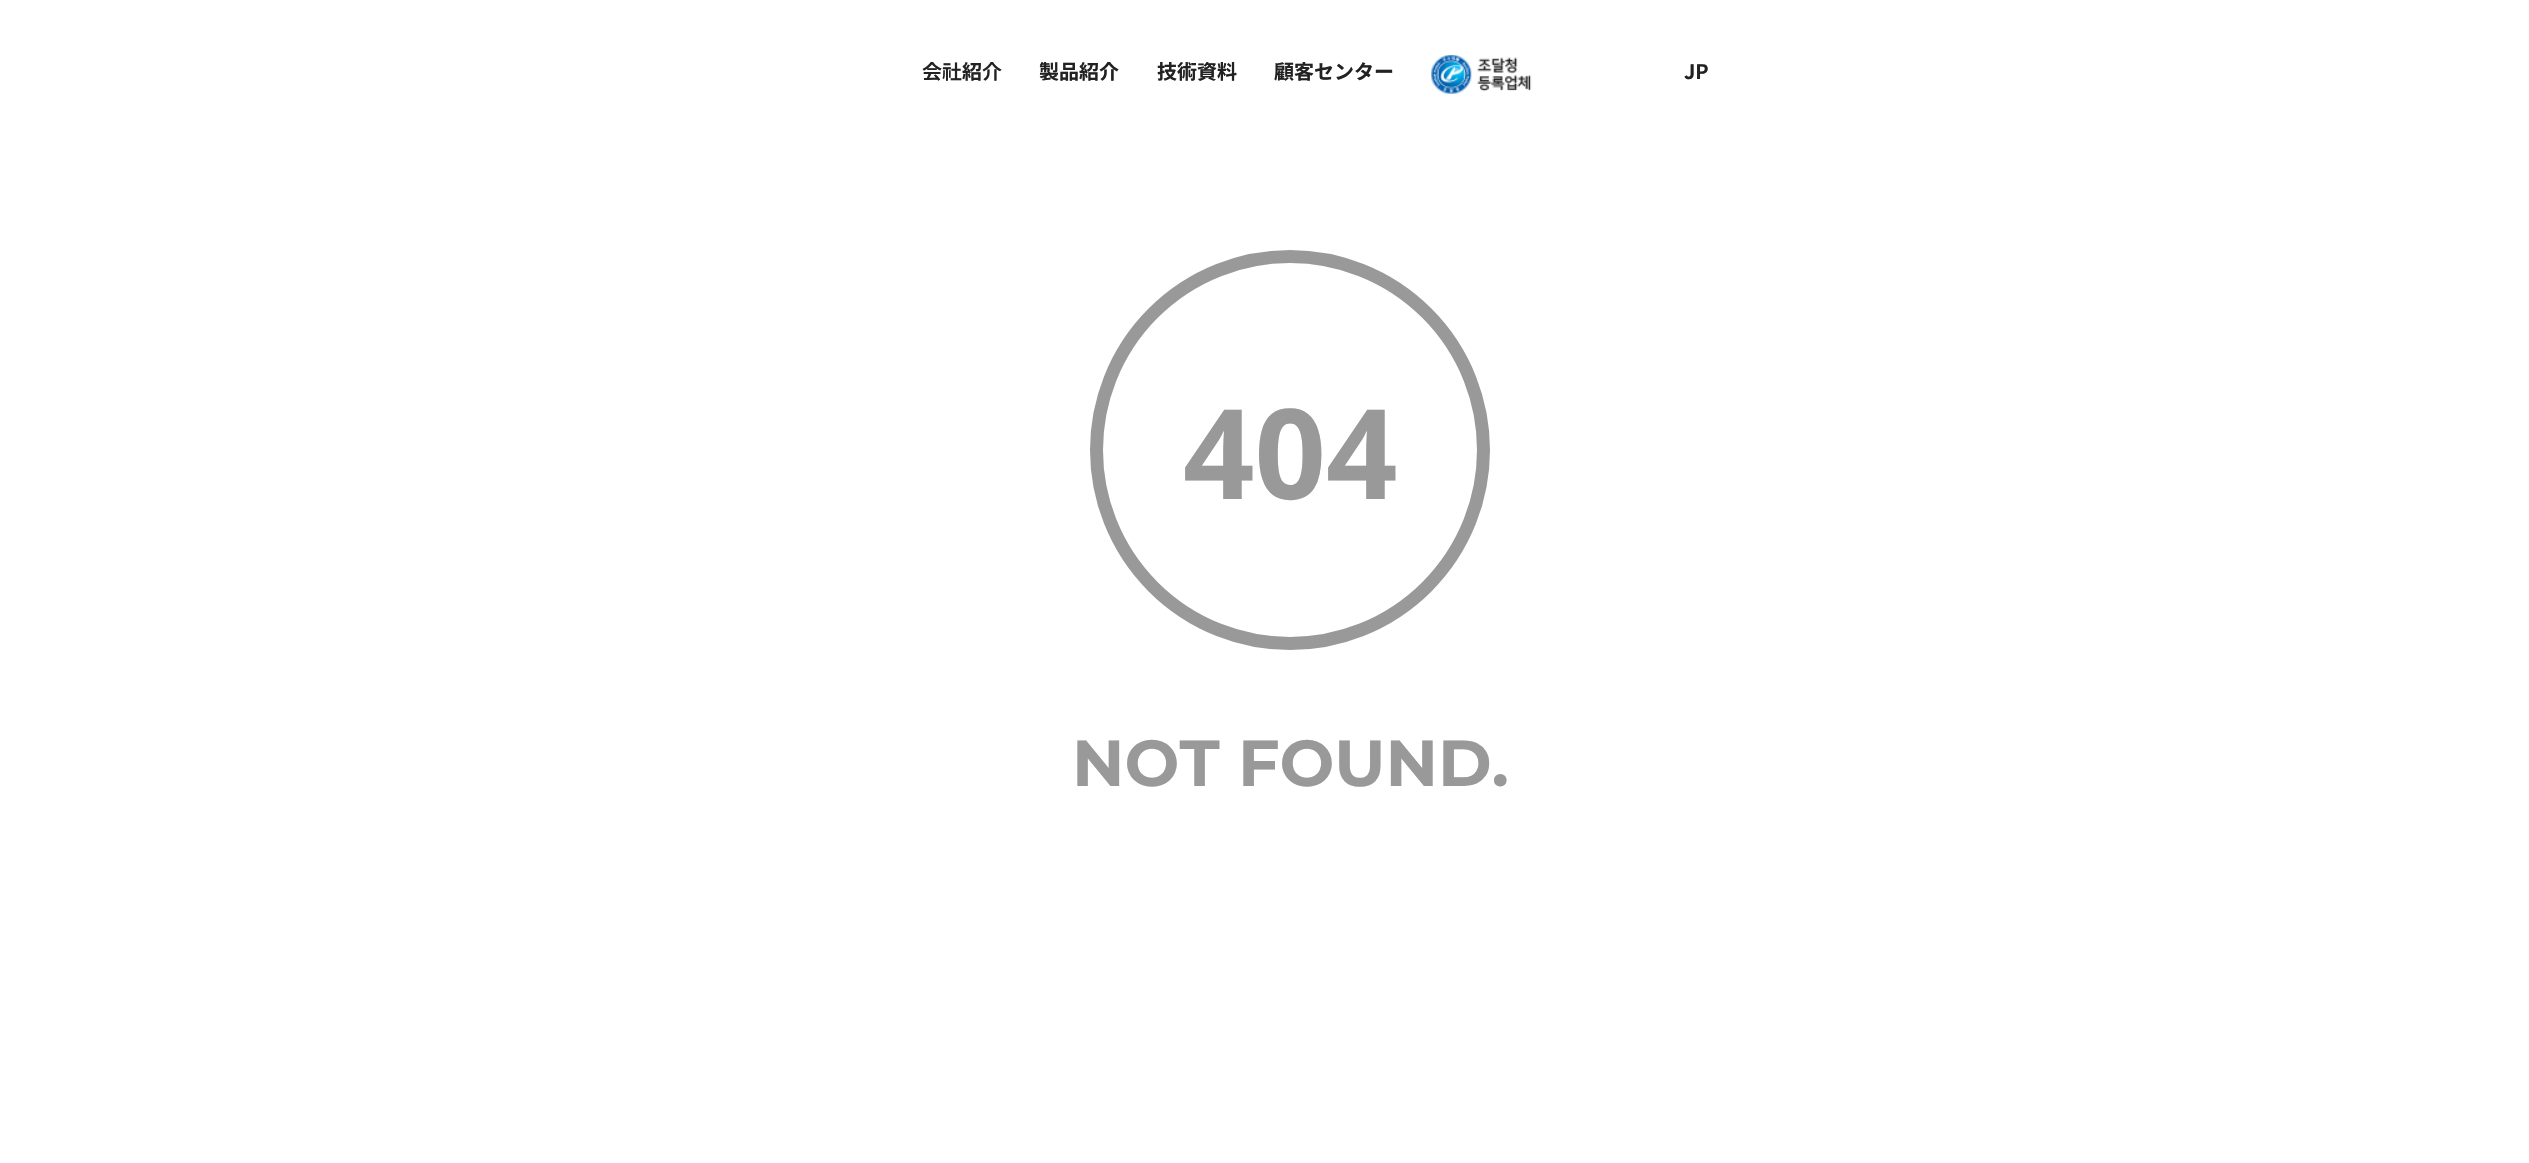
#include "include/core/SkBlurTypes.h"
#include "include/core/SkCanvas.h"
#include "include/core/SkData.h"
#include "include/core/SkFont.h"
#include "include/core/SkFontMgr.h"
#include "include/core/SkImage.h"
#include "include/core/SkMaskFilter.h"
#include "include/core/SkPaint.h"
#include "include/core/SkPathBuilder.h"
#include "include/core/SkTextBlob.h"
#include "include/effects/SkDashPathEffect.h"
#include "include/effects/SkGradientShader.h"
#include "include/utils/SkParsePath.h"

extern sk_sp<SkFontMgr> fontMgr;

void draw(SkCanvas* canvas) {
    SkPaint p;
    p.setAntiAlias(true);
    auto font = [&](const char* family, int weight, float size, bool italic = false) {
        SkFontStyle style(weight, SkFontStyle::kNormal_Width,
            italic ? SkFontStyle::kItalic_Slant : SkFontStyle::kUpright_Slant);
        SkFont result(fontMgr->matchFamilyStyle(family, style), size);
        result.setSubpixel(true);
        return result;
    };
    auto drawPhoto = [&](const char* path, float l, float t, float r, float b) {
        auto image = SkImages::DeferredFromEncodedData(SkData::MakeFromFileName(path));
        canvas->drawImageRect(image, SkRect::MakeLTRB(l, t, r, b), SkSamplingOptions());
    };
    canvas->clear(0xFFFFFFFF);
    auto font1 = font("Noto Sans KR", 600, 20);
    p.setColor(0xFF222222);
    canvas->drawString("会社", 922, 79, font1, p);
    auto font2 = font("Noto Sans KR", 700, 20);
    canvas->drawString("紹", 962, 79, font2, p);
    canvas->drawString("介", 982, 79, font1, p);
    {
        const struct { const char* s; float x, y; } items[] = {
            {"製品紹介", 1039, 79},
            {"技術資料", 1157, 79},
            {"顧客センター", 1274, 79},
        };
        for (auto [s, x, y] : items) {
            canvas->drawString(s, x, y, font2, p);
        }
    }
    drawPhoto("media/1.png", 1431, 55, 1532, 94);
    canvas->drawString("JP", 1684, 79, font2, p);
    p.setStyle(SkPaint::kStroke_Style);
    p.setStrokeWidth(13);
    p.setColor(0xFF999999);
    canvas->drawCircle(1290, 450, 193.5f, p);
    auto font3 = font("Open Sans", 700, 125);
    p.setStyle(SkPaint::kFill_Style);
    canvas->drawString("404", 1183, 499, font3, p);
    auto font4 = font("Montserrat", 700, 65);
    canvas->drawString("NOT FOUND.", 1072, 786, font4, p);
}
